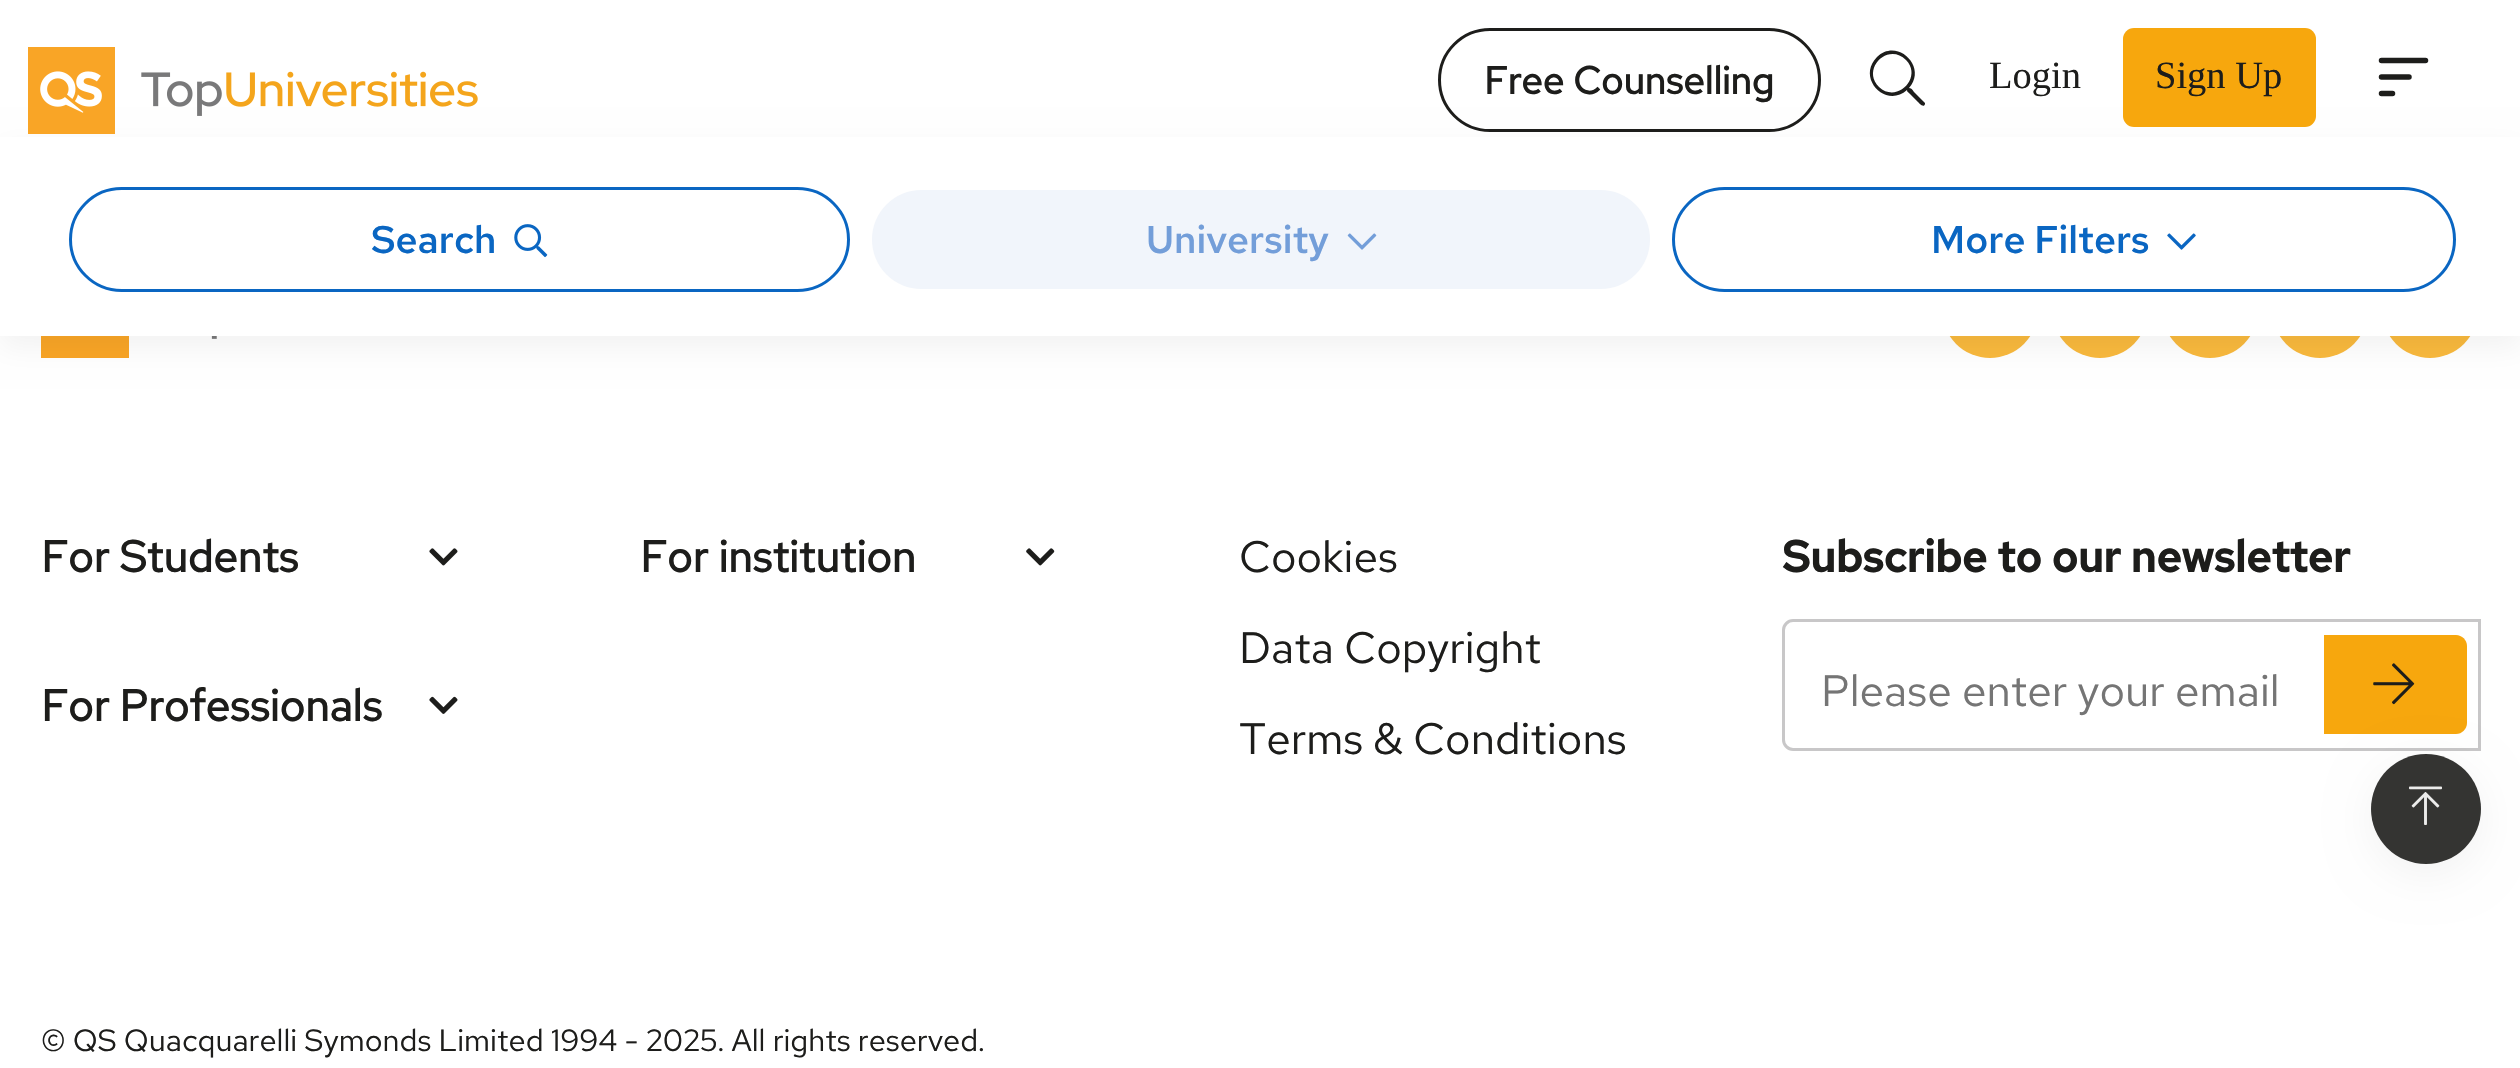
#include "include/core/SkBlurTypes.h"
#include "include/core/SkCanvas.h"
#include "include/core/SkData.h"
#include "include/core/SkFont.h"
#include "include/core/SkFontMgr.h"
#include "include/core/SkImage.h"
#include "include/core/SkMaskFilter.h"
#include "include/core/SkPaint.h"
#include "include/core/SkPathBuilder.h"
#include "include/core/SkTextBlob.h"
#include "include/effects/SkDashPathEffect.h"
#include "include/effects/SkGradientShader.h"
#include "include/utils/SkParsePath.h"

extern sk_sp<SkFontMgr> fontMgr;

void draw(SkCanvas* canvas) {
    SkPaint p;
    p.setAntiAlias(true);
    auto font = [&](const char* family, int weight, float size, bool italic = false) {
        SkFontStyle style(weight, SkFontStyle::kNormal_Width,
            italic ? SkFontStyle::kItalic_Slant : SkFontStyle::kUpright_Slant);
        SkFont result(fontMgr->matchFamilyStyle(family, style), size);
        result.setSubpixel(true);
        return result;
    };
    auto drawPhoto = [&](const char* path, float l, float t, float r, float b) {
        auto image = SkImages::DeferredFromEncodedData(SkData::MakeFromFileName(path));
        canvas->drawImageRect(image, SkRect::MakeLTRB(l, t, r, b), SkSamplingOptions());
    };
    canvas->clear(0xFFFFFFFF);
    drawPhoto("media/5.png", 41, 336, 217, 358);
    p.setColor(0xFFF9B93D);
    canvas->drawRoundRect(SkRect::MakeLTRB(1942, 261, 2038, 358), 48, 48, p);
    canvas->drawRoundRect(SkRect::MakeLTRB(2052, 261, 2148, 358), 48, 48, p);
    canvas->drawRoundRect(SkRect::MakeLTRB(2162, 261, 2258, 358), 48, 48, p);
    canvas->drawRoundRect(SkRect::MakeLTRB(2272, 261, 2368, 358), 48, 48, p);
    canvas->drawRoundRect(SkRect::MakeLTRB(2382, 261, 2478, 358), 48, 48, p);
    p.setColor(0x0D000000);
    p.setMaskFilter(SkMaskFilter::MakeBlur(kNormal_SkBlurStyle, 14));
    canvas->drawRect(SkRect::MakeLTRB(0, 149, 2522, 347), p);
    p.setMaskFilter(nullptr);
    drawPhoto("media/1.png", 28, 47, 478, 134);
    p.setStyle(SkPaint::kStroke_Style);
    p.setStrokeWidth(3);
    p.setColor(0xFF1D1D1B);
    canvas->drawRoundRect(SkRect::MakeLTRB(1439.5f, 29.5f, 1819.5f, 130.5f), 50.5f, 50.5f, p);
    auto font1 = font("Red Hat Text", 700, 38.5f);
    p.setStyle(SkPaint::kFill_Style);
    canvas->drawString("Free Counselling", 1484, 94, font1, p);
    canvas->drawPath(SkPathBuilder().moveTo(1925, 103).lineTo(1925, 104).cubicTo(1924, 109, 1918, 102, 1917, 101).lineTo(1910, 94).cubicTo(1908, 92, 1907, 92, 1907, 90).cubicTo(1886, 109, 1856, 78, 1877, 57).cubicTo(1897, 37, 1928, 67, 1909, 88).cubicTo(1912, 88, 1913, 91, 1915, 93).close().moveTo(1879, 87).cubicTo(1897, 104, 1923, 77, 1906, 60).cubicTo(1888, 42, 1861, 69, 1879, 87).close().detach(), p);
    auto font2 = font("Liberation Serif", 400, 38.5f);
    canvas->drawString("Login", 1989, 88, font2, p);
    p.setColor(0xFFF7A70D);
    canvas->drawRoundRect(SkRect::MakeLTRB(2123, 28, 2316, 127), 11, 11, p);
    p.setColor(0xFF1D1D1B);
    canvas->drawString("Sign Up", 2155, 88, font2, p);
    p.setStyle(SkPaint::kStroke_Style);
    p.setStrokeWidth(5.5f);
    p.setStrokeCap(SkPaint::kRound_Cap);
    p.setStrokeJoin(SkPaint::kRound_Join);
    canvas->drawPath(SkPathBuilder().moveTo(2381.5f, 77).lineTo(2409, 77).moveTo(2381.5f, 60.5f).lineTo(2425.5f, 60.5f).moveTo(2381.5f, 93.5f).lineTo(2392.5f, 93.5f).detach(), p);
    p.setStyle(SkPaint::kFill_Style);
    p.setColor(0xFFFFFFFF);
    canvas->drawRect(SkRect::MakeLTRB(0, 137, 2520, 336), p);
    p.setStyle(SkPaint::kStroke_Style);
    p.setStrokeWidth(3);
    p.setStrokeCap(SkPaint::kButt_Cap);
    p.setStrokeJoin(SkPaint::kMiter_Join);
    p.setColor(0xFF0A66C2);
    canvas->drawRoundRect(SkRect::MakeLTRB(70.5f, 188.5f, 848.5f, 290.5f), 51, 51, p);
    auto font3 = font("Red Hat Text", 500, 38.5f);
    p.setStyle(SkPaint::kFill_Style);
    canvas->drawString("Search", 371, 253, font3, p);
    drawPhoto("media/2.png", 514, 224, 548, 258);
    p.setColor(0xFFF1F5FB);
    canvas->drawRoundRect(SkRect::MakeLTRB(872, 190, 1650, 289), 49.5f, 49.5f, p);
    p.setColor(0xFF739ED9);
    canvas->drawString("University", 1146, 253, font3, p);
    drawPhoto("media/3.png", 1347, 233, 1377, 250);
    p.setStyle(SkPaint::kStroke_Style);
    p.setColor(0xFF0A66C2);
    canvas->drawRoundRect(SkRect::MakeLTRB(1673.5f, 188.5f, 2454.5f, 290.5f), 51, 51, p);
    p.setStyle(SkPaint::kFill_Style);
    canvas->drawString("More Filters", 1931, 253, font3, p);
    drawPhoto("media/4.png", 2167, 233, 2196, 250);
    auto font4 = font("Red Hat Text", 700, 44);
    p.setColor(0xFF1D1D1B);
    canvas->drawString("For Students", 41, 572, font4, p);
    drawPhoto("media/6.png", 429, 548, 458, 566);
    canvas->drawString("For Professionals", 41, 721, font4, p);
    drawPhoto("media/7.png", 429, 696, 458, 714);
    canvas->drawString("For institution", 640, 572, font4, p);
    drawPhoto("media/8.png", 1026, 548, 1055, 566);
    auto font5 = font("Red Hat Text", 400, 44);
    {
        const struct { const char* s; float x, y; } items[] = {
            {"Cookies", 1239, 572},
            {"Data Copyright", 1239, 663},
            {"Terms & Conditions", 1239, 754},
        };
        for (auto [s, x, y] : items) {
            canvas->drawString(s, x, y, font5, p);
        }
    }
    auto font6 = font("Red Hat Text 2", 700, 44);
    canvas->drawString("Subscribe to our newsletter", 1782, 572, font6, p);
    p.setStyle(SkPaint::kStroke_Style);
    p.setColor(0xFFC8C7C8);
    canvas->drawPath(SkPathBuilder().moveTo(1793, 620.5f).lineTo(2479.5f, 620.5f).lineTo(2479.5f, 749.5f).lineTo(1793, 749.5f).cubicTo(1788, 749.5f, 1783.5f, 745, 1783.5f, 740).lineTo(1783.5f, 630).cubicTo(1783.5f, 625, 1788, 620.5f, 1793, 620.5f).close().detach(), p);
    p.setStyle(SkPaint::kFill_Style);
    p.setColor(0xFF757575);
    canvas->drawString("Please enter your email", 1821, 706, font5, p);
    p.setColor(0xFFF7A70D);
    canvas->drawPath(SkPathBuilder().moveTo(2324, 635).lineTo(2456, 635).cubicTo(2462, 635, 2467, 640, 2467, 646).lineTo(2467, 723).cubicTo(2467, 729, 2462, 734, 2456, 734).lineTo(2324, 734).close().detach(), p);
    drawPhoto("media/9.png", 2373, 663, 2415, 705);
    auto font7 = font("Red Hat Text", 400, 30.75f);
    p.setColor(0xFF1D1D1B);
    canvas->drawString("© QS Quacquarelli Symonds Limited 1994 -", 41, 1051, font7, p);
    canvas->drawString("2025. All rights reserved.", 646, 1051, font7, p);
    p.setColor(0x0D000000);
    p.setMaskFilter(SkMaskFilter::MakeBlur(kNormal_SkBlurStyle, 22));
    canvas->drawRoundRect(SkRect::MakeLTRB(2371, 765, 2481, 875), 55, 55, p);
    p.setMaskFilter(nullptr);
    p.setColor(0xFF343432);
    canvas->drawCircle(2426, 809, 55, p);
    drawPhoto("media/10.png", 2409, 786, 2442, 825);
}
